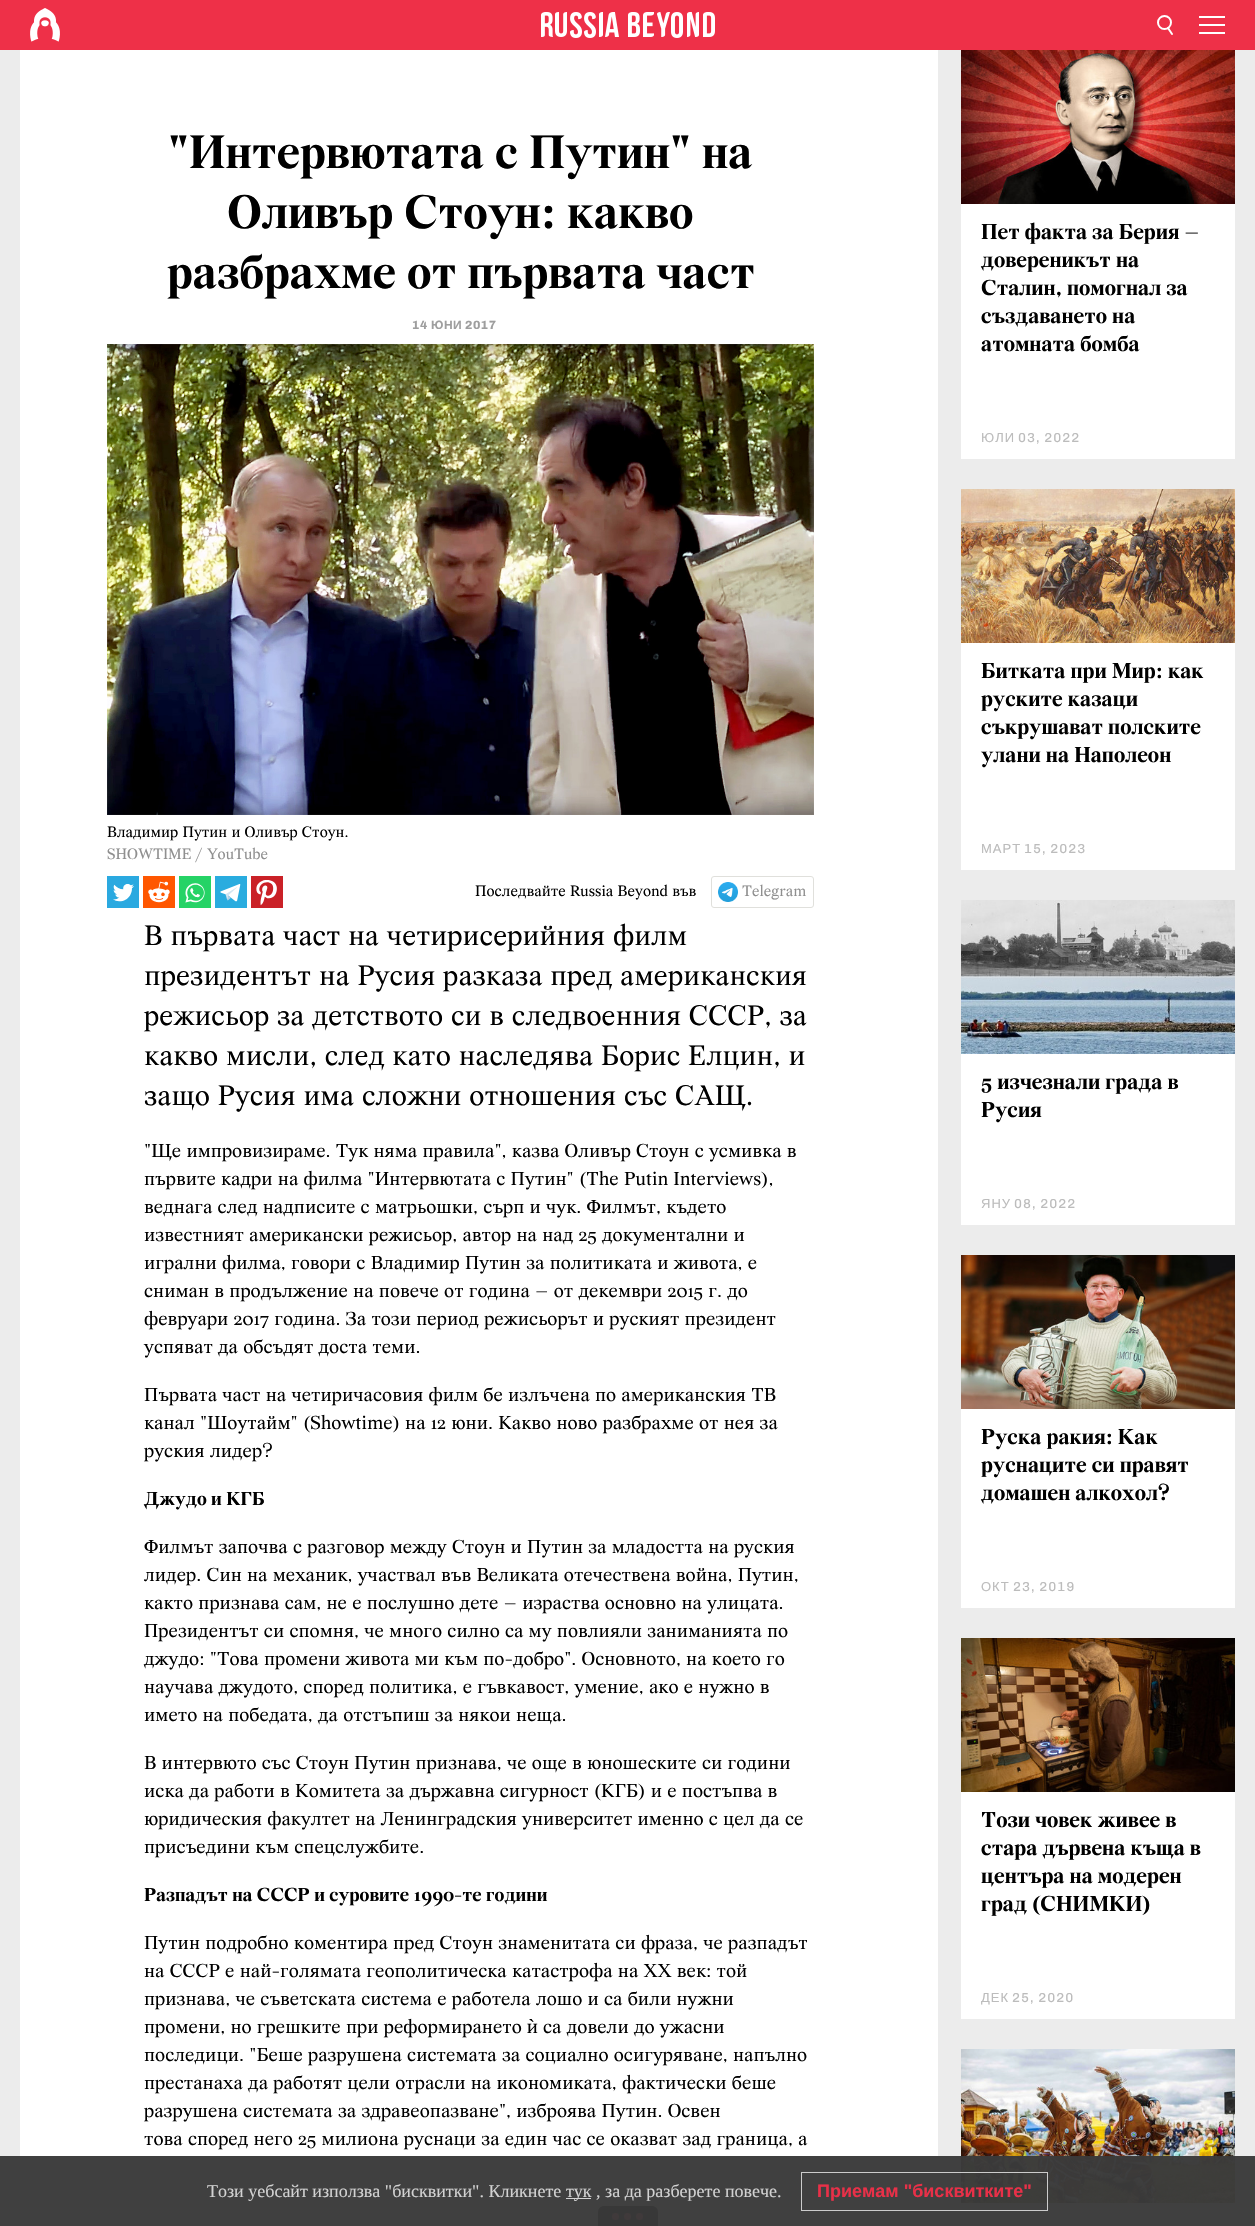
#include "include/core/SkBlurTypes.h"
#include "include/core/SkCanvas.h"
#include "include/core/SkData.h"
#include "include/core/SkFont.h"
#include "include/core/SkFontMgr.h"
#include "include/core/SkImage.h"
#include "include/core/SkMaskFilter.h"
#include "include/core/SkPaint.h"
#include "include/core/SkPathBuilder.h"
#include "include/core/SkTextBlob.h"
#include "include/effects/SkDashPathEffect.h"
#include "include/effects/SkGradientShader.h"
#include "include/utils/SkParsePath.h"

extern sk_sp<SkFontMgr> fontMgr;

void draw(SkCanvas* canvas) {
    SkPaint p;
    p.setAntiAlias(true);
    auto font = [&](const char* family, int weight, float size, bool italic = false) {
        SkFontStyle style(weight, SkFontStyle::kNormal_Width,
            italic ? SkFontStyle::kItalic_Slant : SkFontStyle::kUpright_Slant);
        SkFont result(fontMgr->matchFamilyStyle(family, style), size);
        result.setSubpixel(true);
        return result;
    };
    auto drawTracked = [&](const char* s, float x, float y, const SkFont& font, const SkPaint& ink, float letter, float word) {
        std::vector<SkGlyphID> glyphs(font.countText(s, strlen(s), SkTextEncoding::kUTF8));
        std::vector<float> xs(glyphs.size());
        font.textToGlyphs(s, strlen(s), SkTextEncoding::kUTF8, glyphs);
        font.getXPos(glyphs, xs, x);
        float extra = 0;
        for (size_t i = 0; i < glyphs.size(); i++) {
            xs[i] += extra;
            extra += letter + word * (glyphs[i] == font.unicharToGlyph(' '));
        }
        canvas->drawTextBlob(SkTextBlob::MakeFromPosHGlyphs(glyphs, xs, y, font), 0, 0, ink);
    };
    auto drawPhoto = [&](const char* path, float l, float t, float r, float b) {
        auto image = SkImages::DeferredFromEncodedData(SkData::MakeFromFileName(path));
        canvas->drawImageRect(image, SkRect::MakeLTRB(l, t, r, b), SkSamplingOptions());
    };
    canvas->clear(0xFFECECEC);
    p.setColor(0xFFEE3048);
    canvas->drawRect(SkRect::MakeLTRB(0, 0, 1255, 50), p);
    drawPhoto("media/1.png", 30, 8, 60, 42);
    drawPhoto("media/2.png", 541, 12, 715, 38);
    p.setStyle(SkPaint::kStroke_Style);
    p.setStrokeWidth(2);
    p.setColor(0xFFFFFFFF);
    canvas->drawCircle(1164.5f, 22.5f, 6.5f, p);
    p.setStrokeCap(SkPaint::kRound_Cap);
    canvas->drawPath(SkPathBuilder().moveTo(1168, 28).lineTo(1172, 34).detach(), p);
    drawPhoto("media/3.png", 1199, 16, 1225, 34);
    p.setStyle(SkPaint::kFill_Style);
    canvas->drawRect(SkRect::MakeLTRB(20, 50, 938, 2226), p);
    auto font1 = font("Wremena", 700, 50);
    p.setColor(0xFF000000);
    {
        const struct { const char* s; float x, y; } items[] = {
            {"\"Интервютата с Путин\" на", 168, 168},
            {"Оливър Стоун: какво", 227, 228},
            {"разбрахме от първата част", 167, 288},
        };
        for (auto [s, x, y] : items) {
            canvas->drawString(s, x, y, font1, p);
        }
    }
    auto font2 = font("Chivo", 700, 12);
    p.setColor(0xFF9E9E9E);
    drawTracked("14", 412, 329, font2, p, 0.5f, 0);
    auto font3 = font("Liberation Sans", 700, 12);
    drawTracked("ЮНИ", 431, 329, font3, p, 0.5f, 0);
    drawTracked("2017", 465, 329, font2, p, 0.5f, 0);
    drawPhoto("media/4.png", 107, 344, 814, 815);
    auto font4 = font("Wremena", 400, 16);
    p.setColor(0xFF000000);
    canvas->drawString("Владимир Путин и Оливър Стоун.", 107, 837, font4, p);
    p.setColor(0xFF8F8F8F);
    canvas->drawString("SHOWTIME / YouTube", 107, 859, font4, p);
    drawPhoto("media/5.png", 107, 876, 139, 908);
    drawPhoto("media/6.png", 143, 876, 175, 908);
    drawPhoto("media/7.png", 179, 876, 211, 908);
    drawPhoto("media/8.png", 215, 876, 247, 908);
    drawPhoto("media/9.png", 251, 876, 283, 908);
    p.setColor(0xFF000000);
    canvas->drawString("Последвайте Russia Beyond във", 475, 896, font4, p);
    drawPhoto("media/10.png", 718, 882, 738, 902);
    p.setStyle(SkPaint::kStroke_Style);
    p.setStrokeWidth(1);
    p.setStrokeCap(SkPaint::kButt_Cap);
    p.setColor(0xFFE0E0DC);
    canvas->drawRoundRect(SkRect::MakeLTRB(711.5f, 876.5f, 813.5f, 907.5f), 2.5f, 2.5f, p);
    p.setStyle(SkPaint::kFill_Style);
    p.setColor(0xFF8F8F8F);
    canvas->drawString("Telegram", 742, 896, font4, p);
    auto font5 = font("Wremena", 400, 30);
    p.setColor(0xFF000000);
    {
        const struct { const char* s; float x, y; } items[] = {
            {"В първата част на четирисерийния филм", 144, 945},
            {"президентът на Русия разказа пред американския", 144, 985},
            {"режисьор за детството си в следвоенния СССР, за", 144, 1025},
            {"какво мисли, след като наследява Борис Елцин, и", 144, 1065},
            {"защо Русия има сложни отношения със САЩ.", 144, 1105},
        };
        for (auto [s, x, y] : items) {
            canvas->drawString(s, x, y, font5, p);
        }
    }
    auto font6 = font("Wremena", 400, 20);
    {
        const struct { const char* s; float x, y; } items[] = {
            {"\"Ще импровизираме. Тук няма правила\", казва Оливър Стоун с усмивка в", 144, 1157},
            {"първите кадри на филма \"Интервютата с Путин\" (The Putin Interviews),", 144, 1185},
            {"веднага след надписите с матрьошки, сърп и чук. Филмът, където", 144, 1213},
            {"известният американски режисьор, автор на над 25 документални и", 144, 1241},
            {"игрални филма, говори с Владимир Путин за политиката и живота, е", 144, 1269},
            {"сниман в продължение на повече от година – от декември 2015 г. до", 144, 1297},
            {"февруари 2017 година. За този период режисьорът и руският президент", 144, 1325},
            {"успяват да обсъдят доста теми.", 144, 1353},
            {"Първата част на четиричасовия филм бе излъчена по американския ТВ", 144, 1401},
            {"канал \"Шоутайм\" (Showtime) на 12 юни. Какво ново разбрахме от нея за", 144, 1429},
            {"руския лидер?", 144, 1457},
        };
        for (auto [s, x, y] : items) {
            canvas->drawString(s, x, y, font6, p);
        }
    }
    auto font7 = font("Wremena", 700, 20);
    canvas->drawString("Джудо и КГБ", 144, 1505, font7, p);
    {
        const struct { const char* s; float x, y; } items[] = {
            {"Филмът започва с разговор между Стоун и Путин за младостта на руския", 144, 1553},
            {"лидер. Син на механик, участвал във Великата отечествена война, Путин,", 144, 1581},
            {"както признава сам, не е послушно дете – израства основно на улицата.", 144, 1609},
            {"Президентът си спомня, че много силно са му повлияли заниманията по", 144, 1637},
            {"джудо: \"Това промени живота ми към по-добро\". Основното, на което го", 144, 1665},
            {"научава джудото, според политика, е гъвкавост, умение, ако е нужно в", 144, 1693},
            {"името на победата, да отстъпиш за някои неща.", 144, 1721},
            {"В интервюто със Стоун Путин признава, че още в юношеските си години", 144, 1769},
            {"иска да работи в Комитета за държавна сигурност (КГБ) и е постъпва в", 144, 1797},
            {"юридическия факултет на Ленинградския университет именно с цел да се", 144, 1825},
            {"присъедини към спецслужбите.", 144, 1853},
        };
        for (auto [s, x, y] : items) {
            canvas->drawString(s, x, y, font6, p);
        }
    }
    canvas->drawString("Разпадът на СССР и суровите 1990-те години", 144, 1901, font7, p);
    {
        const struct { const char* s; float x, y; } items[] = {
            {"Путин подробно коментира пред Стоун знаменитата си фраза, че разпадът", 144, 1949},
            {"на СССР е най-голямата геополитическа катастрофа на XX век: той", 144, 1977},
            {"признава, че съветската система е работела лошо и са били нужни", 144, 2005},
            {"промени, но грешките при реформирането", 144, 2033},
        };
        for (auto [s, x, y] : items) {
            canvas->drawString(s, x, y, font6, p);
        }
    }
    auto font8 = font("Liberation Serif", 400, 20);
    canvas->drawString("ѝ", 527, 2033, font8, p);
    {
        const struct { const char* s; float x, y; } items[] = {
            {"са довели до ужасни", 543, 2033},
            {"последици. \"Беше разрушена системата за социално осигуряване, напълно", 144, 2061},
            {"престанаха да работят цели отрасли на икономиката, фактически беше", 144, 2089},
            {"разрушена системата за здравеопазване\", изброява Путин. Освен", 144, 2117},
            {"това според него 25 милиона руснаци за един час се оказват зад граница, а", 144, 2145},
        };
        for (auto [s, x, y] : items) {
            canvas->drawString(s, x, y, font6, p);
        }
    }
    p.setColor(0xFFFFFFFF);
    canvas->drawRect(SkRect::MakeLTRB(961, 204, 1235, 459), p);
    drawPhoto("media/11.png", 961, 50, 1235, 204);
    auto font9 = font("Wremena", 700, 23);
    p.setColor(0xFF000000);
    {
        const struct { const char* s; float x, y; } items[] = {
            {"Пет факта за Берия –", 981, 239},
            {"довереникът на", 981, 267},
            {"Сталин, помогнал за", 981, 295},
            {"създаването на", 981, 323},
            {"атомната бомба", 981, 351},
        };
        for (auto [s, x, y] : items) {
            canvas->drawString(s, x, y, font9, p);
        }
    }
    auto font10 = font("Liberation Sans", 400, 13);
    p.setColor(0xFFBCBCBC);
    drawTracked("ЮЛИ", 981, 442, font10, p, 1, 0);
    auto font11 = font("Chivo", 400, 13);
    drawTracked("03, 2022", 1018, 442, font11, p, 1, 0);
    p.setColor(0xFFFFFFFF);
    canvas->drawRect(SkRect::MakeLTRB(961, 643, 1235, 870), p);
    drawPhoto("media/12.png", 961, 489, 1235, 643);
    p.setColor(0xFF000000);
    {
        const struct { const char* s; float x, y; } items[] = {
            {"Битката при Мир: как", 981, 678},
            {"руските казаци", 981, 706},
            {"съкрушават полските", 981, 734},
            {"улани на Наполеон", 981, 762},
        };
        for (auto [s, x, y] : items) {
            canvas->drawString(s, x, y, font9, p);
        }
    }
    p.setColor(0xFFBCBCBC);
    drawTracked("МАРТ", 981, 853, font10, p, 1, 0);
    drawTracked("15, 2023", 1024, 853, font11, p, 1, 0);
    p.setColor(0xFFFFFFFF);
    canvas->drawRect(SkRect::MakeLTRB(961, 1054, 1235, 1225), p);
    drawPhoto("media/13.png", 961, 900, 1235, 1054);
    p.setColor(0xFF000000);
    canvas->drawString("5 изчезнали града в", 981, 1089, font9, p);
    canvas->drawString("Русия", 981, 1117, font9, p);
    p.setColor(0xFFBCBCBC);
    drawTracked("ЯНУ", 981, 1208, font10, p, 1, 0);
    drawTracked("08, 2022", 1014, 1208, font11, p, 1, 0);
    p.setColor(0xFFFFFFFF);
    canvas->drawRect(SkRect::MakeLTRB(961, 1409, 1235, 1608), p);
    drawPhoto("media/14.png", 961, 1255, 1235, 1409);
    p.setColor(0xFF000000);
    {
        const struct { const char* s; float x, y; } items[] = {
            {"Руска ракия: Как", 981, 1444},
            {"руснаците си правят", 981, 1472},
            {"домашен алкохол?", 981, 1500},
        };
        for (auto [s, x, y] : items) {
            canvas->drawString(s, x, y, font9, p);
        }
    }
    p.setColor(0xFFBCBCBC);
    drawTracked("ОКТ", 981, 1591, font10, p, 1, 0);
    drawTracked("23, 2019", 1013, 1591, font11, p, 1, 0);
    p.setColor(0xFFFFFFFF);
    canvas->drawRect(SkRect::MakeLTRB(961, 1792, 1235, 2019), p);
    drawPhoto("media/15.png", 961, 1638, 1235, 1792);
    p.setColor(0xFF000000);
    {
        const struct { const char* s; float x, y; } items[] = {
            {"Този човек живее в", 981, 1827},
            {"стара дървена къща в", 981, 1855},
            {"центъра на модерен", 981, 1883},
            {"град (СНИМКИ)", 981, 1911},
        };
        for (auto [s, x, y] : items) {
            canvas->drawString(s, x, y, font9, p);
        }
    }
    p.setColor(0xFFBCBCBC);
    drawTracked("ДЕК", 981, 2002, font10, p, 1, 0);
    drawTracked("25, 2020", 1012, 2002, font11, p, 1, 0);
    p.setColor(0xFFFFFFFF);
    canvas->drawRect(SkRect::MakeLTRB(961, 2203, 1235, 2226), p);
    drawPhoto("media/16.png", 961, 2049, 1235, 2203);
    p.setColor(0xFF000000);
    canvas->drawPath(SkPathBuilder().moveTo(604, 2206).lineTo(652, 2206).cubicTo(655.5f, 2206, 658, 2208.5f, 658, 2212).lineTo(658, 2226).lineTo(598, 2226).lineTo(598, 2212).cubicTo(598, 2208.5f, 600.5f, 2206, 604, 2206).close().detach(), p);
    p.setColor(0xFFEE3048);
    canvas->drawCircle(615.5f, 2216.5f, 3.5f, p);
    canvas->drawCircle(627.5f, 2216.5f, 3.5f, p);
    canvas->drawCircle(639.5f, 2216.5f, 3.5f, p);
    p.setColor(0xF73A3A3A);
    canvas->drawRect(SkRect::MakeLTRB(0, 2156, 1255, 2226), p);
    auto font12 = font("Liberation Serif", 400, 18);
    p.setColor(0xFFD2D2D2);
    canvas->drawString("Този уебсайт използва \"бисквитки\". Кликнете", 207, 2197, font12, p);
    canvas->drawRect(SkRect::MakeLTRB(566, 2198, 591, 2199), p);
    canvas->drawString("тук , за да разберете повече.", 566, 2197, font12, p);
    p.setStyle(SkPaint::kStroke_Style);
    p.setColor(0xF7D1D1D1);
    canvas->drawRect(SkRect::MakeLTRB(801.5f, 2172.5f, 1047.5f, 2210.5f), p);
    auto font13 = font("Liberation Sans", 700, 18);
    p.setStyle(SkPaint::kFill_Style);
    p.setColor(0xFFE93048);
    canvas->drawString("Приемам \"бисквитките\"", 817, 2197, font13, p);
}
